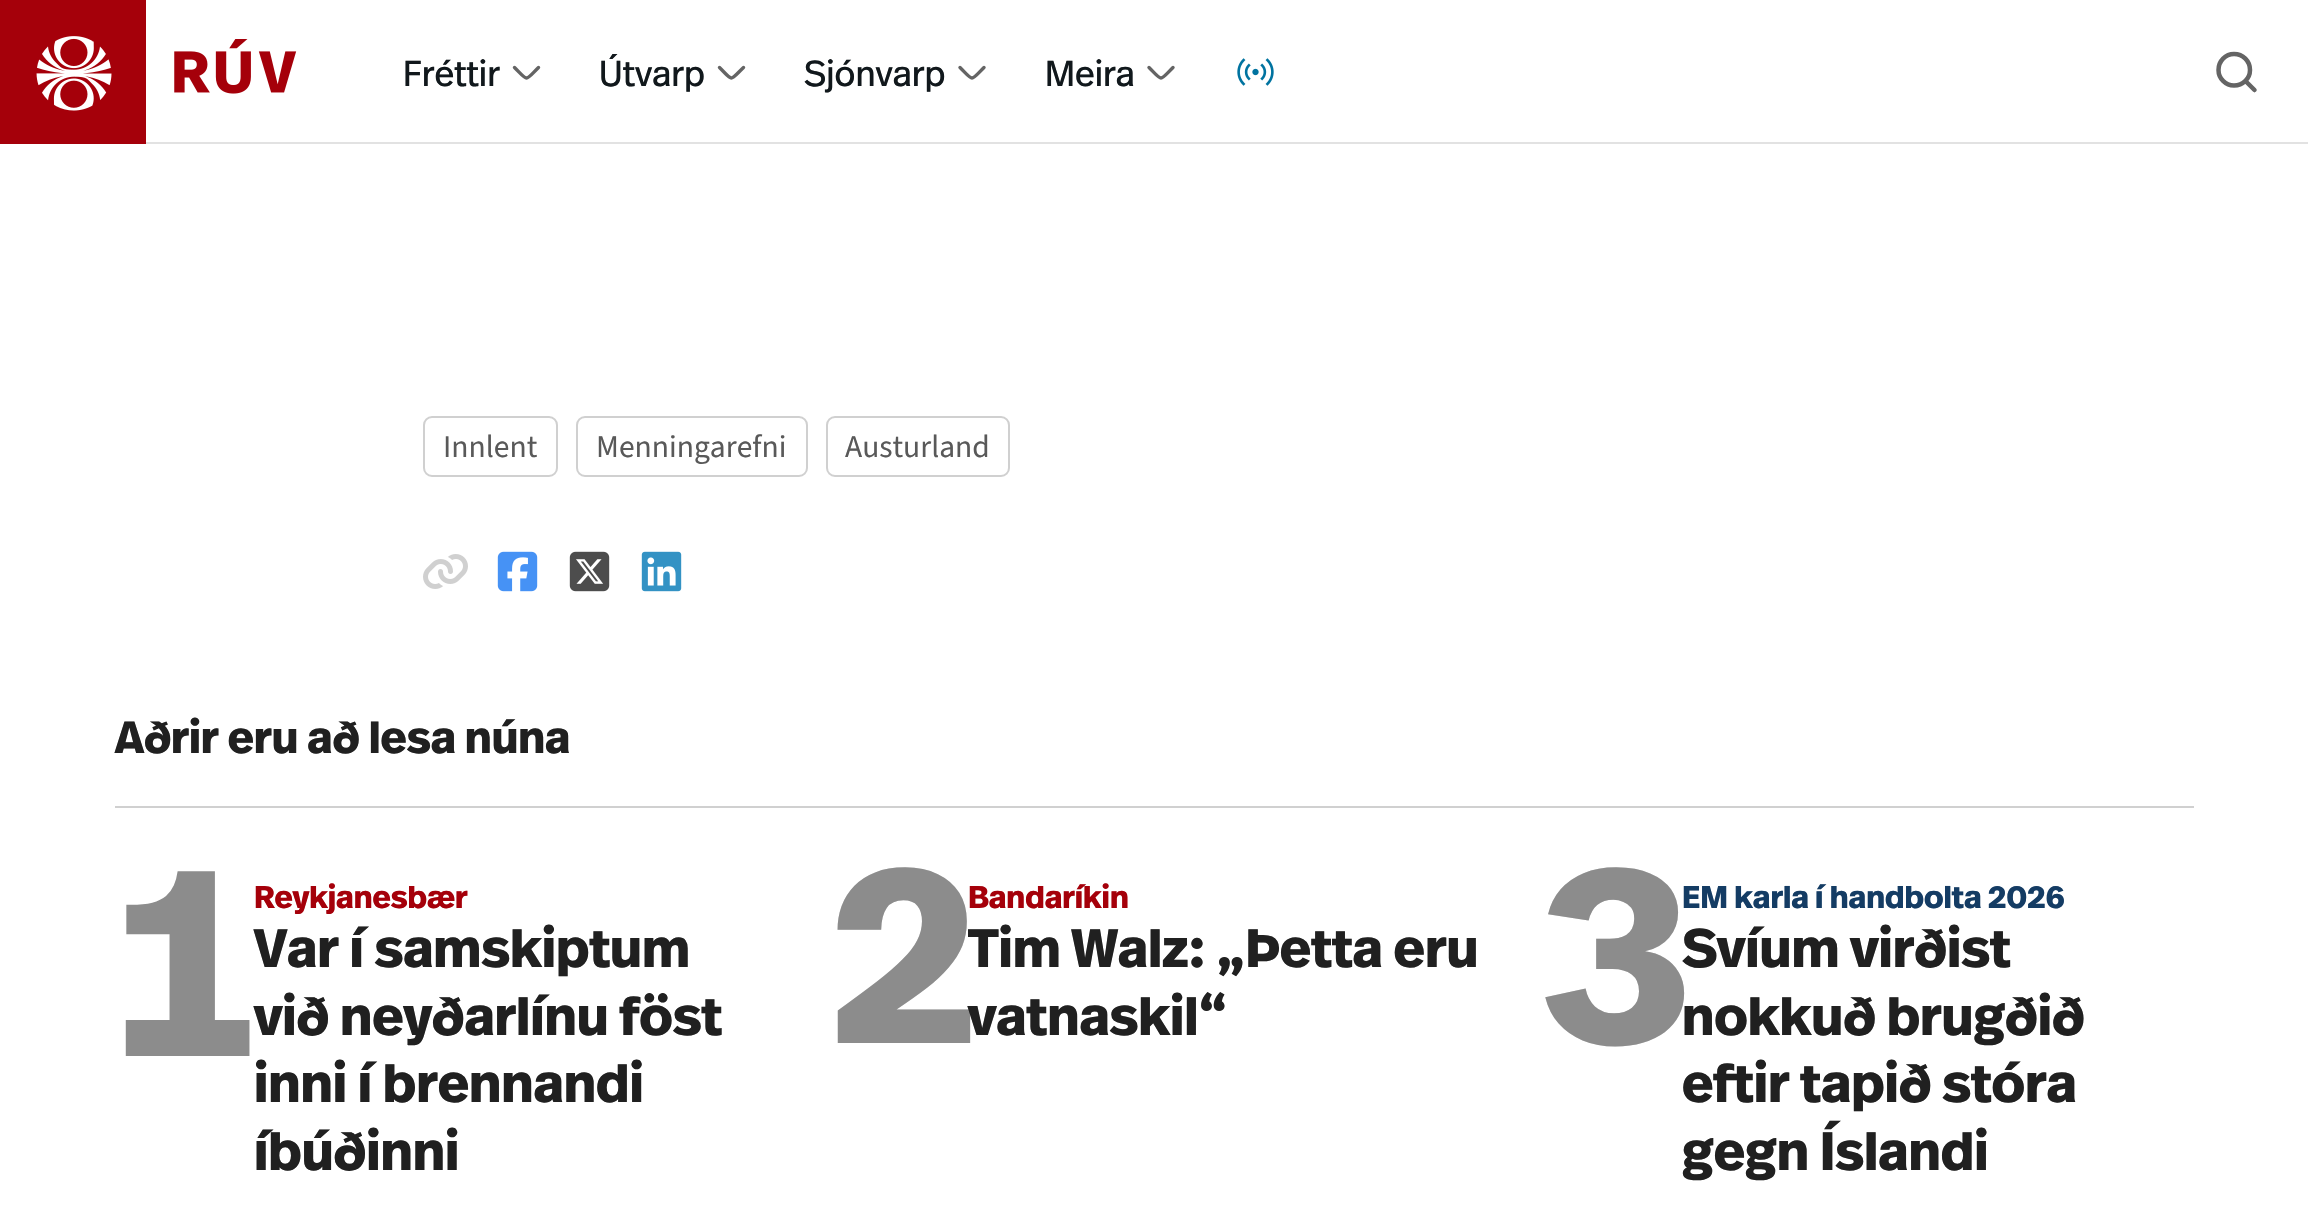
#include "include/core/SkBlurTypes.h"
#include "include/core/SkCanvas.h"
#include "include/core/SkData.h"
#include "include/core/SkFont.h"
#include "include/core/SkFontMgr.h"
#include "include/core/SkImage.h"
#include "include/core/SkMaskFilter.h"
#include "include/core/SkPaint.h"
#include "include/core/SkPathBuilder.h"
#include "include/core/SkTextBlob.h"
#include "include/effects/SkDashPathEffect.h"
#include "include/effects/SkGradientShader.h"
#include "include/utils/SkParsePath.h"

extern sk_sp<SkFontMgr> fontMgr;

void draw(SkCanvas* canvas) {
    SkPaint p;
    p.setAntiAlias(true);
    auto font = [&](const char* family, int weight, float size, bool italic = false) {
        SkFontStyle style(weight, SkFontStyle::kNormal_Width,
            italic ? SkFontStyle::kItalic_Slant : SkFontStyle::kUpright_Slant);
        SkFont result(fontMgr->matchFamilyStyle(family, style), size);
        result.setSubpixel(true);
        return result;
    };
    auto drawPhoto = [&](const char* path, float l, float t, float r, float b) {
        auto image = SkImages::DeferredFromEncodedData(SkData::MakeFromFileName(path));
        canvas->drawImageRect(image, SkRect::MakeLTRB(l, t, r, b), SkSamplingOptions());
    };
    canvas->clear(0xFFFFFFFF);
    p.setColor(0xFFE2E2E2);
    canvas->drawRect(SkRect::MakeLTRB(146, 142, 2308, 144), p);
    drawPhoto("media/1.png", 0, 0, 297, 144);
    auto font1 = font("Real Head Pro", 400, 36);
    p.setColor(0xFF11181C);
    canvas->drawString("Fréttir", 403, 86, font1, p);
    p.setStyle(SkPaint::kStroke_Style);
    p.setStrokeWidth(3.4f);
    p.setStrokeCap(SkPaint::kRound_Cap);
    p.setStrokeJoin(SkPaint::kRound_Join);
    p.setColor(0xFF646464);
    canvas->drawPath(SkPathBuilder().moveTo(538.5f, 67.5f).cubicTo(524.5f, 81.5f, 528.5f, 81.5f, 514.5f, 67.5f).detach(), p);
    p.setStyle(SkPaint::kFill_Style);
    p.setColor(0xFF11181C);
    canvas->drawString("Útvarp", 599, 86, font1, p);
    p.setStyle(SkPaint::kStroke_Style);
    p.setColor(0xFF646464);
    canvas->drawPath(SkPathBuilder().moveTo(743.5f, 67.5f).cubicTo(729, 81.5f, 733.5f, 81.5f, 719.5f, 67.5f).detach(), p);
    p.setStyle(SkPaint::kFill_Style);
    p.setColor(0xFF11181C);
    canvas->drawString("Sjónvarp", 804, 86, font1, p);
    p.setStyle(SkPaint::kStroke_Style);
    p.setColor(0xFF646464);
    canvas->drawPath(SkPathBuilder().moveTo(984, 67.5f).cubicTo(970, 81.5f, 974, 81.5f, 960, 67.5f).detach(), p);
    p.setStyle(SkPaint::kFill_Style);
    p.setColor(0xFF11181C);
    canvas->drawString("Meira", 1045, 86, font1, p);
    p.setStyle(SkPaint::kStroke_Style);
    p.setColor(0xFF646464);
    canvas->drawPath(SkPathBuilder().moveTo(1173, 67.5f).cubicTo(1159, 81.5f, 1163, 81.5f, 1149, 67.5f).detach(), p);
    drawPhoto("media/2.png", 1237, 58, 1274, 86);
    p.setStrokeWidth(4.5f);
    p.setStrokeJoin(SkPaint::kMiter_Join);
    canvas->drawPath(SkPathBuilder().moveTo(2254.5f, 90).lineTo(2245.5f, 81).moveTo(2250, 70).cubicTo(2250, 78.5f, 2243, 85.5f, 2234, 85.5f).cubicTo(2225.5f, 85.5f, 2218.5f, 78.5f, 2218.5f, 70).cubicTo(2218.5f, 61, 2225.5f, 54, 2234, 54).cubicTo(2243, 54, 2250, 61, 2250, 70).close().detach(), p);
    p.setStrokeWidth(2);
    p.setStrokeCap(SkPaint::kButt_Cap);
    p.setColor(0xFFD0D0D0);
    canvas->drawRoundRect(SkRect::MakeLTRB(424, 417, 557, 476), 8, 8, p);
    auto font2 = font("Source Sans 3", 400, 31.5f);
    p.setStyle(SkPaint::kFill_Style);
    p.setColor(0xFF595959);
    canvas->drawString("Innlent", 443, 457, font2, p);
    p.setStyle(SkPaint::kStroke_Style);
    p.setColor(0xFFD0D0D0);
    canvas->drawRoundRect(SkRect::MakeLTRB(577, 417, 807, 476), 8, 8, p);
    p.setStyle(SkPaint::kFill_Style);
    p.setColor(0xFF595959);
    canvas->drawString("Menningarefni", 596, 457, font2, p);
    p.setStyle(SkPaint::kStroke_Style);
    p.setColor(0xFFD0D0D0);
    canvas->drawRoundRect(SkRect::MakeLTRB(827, 417, 1009, 476), 8, 8, p);
    p.setStyle(SkPaint::kFill_Style);
    p.setColor(0xFF595959);
    canvas->drawString("Austurland", 845, 457, font2, p);
    drawPhoto("media/3.png", 423, 554, 468, 589);
    drawPhoto("media/4.png", 497, 551, 538, 592);
    drawPhoto("media/5.png", 569, 551, 610, 592);
    drawPhoto("media/6.png", 641, 551, 682, 592);
    p.setColor(0xFFD0D0D0);
    canvas->drawRect(SkRect::MakeLTRB(115, 806, 2194, 808), p);
    auto font3 = font("Real Head Pro", 700, 45);
    p.setColor(0xFF202020);
    canvas->drawString("Aðrir eru að lesa núna", 115, 753, font3, p);
    auto font4 = font("Real Head Pro", 700, 270);
    p.setColor(0xFF8C8C8C);
    canvas->drawString("1", 115, 1056, font4, p);
    auto font5 = font("Real Head Pro", 700, 31.5f);
    p.setColor(0xFFA5000A);
    canvas->drawString("Reykjanesbær", 254, 908, font5, p);
    auto font6 = font("Real Head Pro", 700, 54);
    p.setColor(0xFF202020);
    {
        const struct { const char* s; float x, y; } items[] = {
            {"Var í samskiptum", 254, 967},
            {"við neyðarlínu föst", 254, 1035},
            {"inni í brennandi", 254, 1102},
            {"íbúðinni", 254, 1170},
        };
        for (auto [s, x, y] : items) {
            canvas->drawString(s, x, y, font6, p);
        }
    }
    auto font7 = font("Real Head Pro", 700, 252);
    p.setColor(0xFF8C8C8C);
    canvas->drawString("2", 829, 1043, font7, p);
    p.setColor(0xFFA5000A);
    canvas->drawString("Bandaríkin", 968, 908, font5, p);
    p.setColor(0xFF202020);
    canvas->drawString("Tim Walz: „Þetta eru", 968, 967, font6, p);
    canvas->drawString("vatnaskil“", 968, 1035, font6, p);
    p.setColor(0xFF8C8C8C);
    canvas->drawString("3", 1542, 1043, font7, p);
    p.setColor(0xFF143C64);
    canvas->drawString("EM karla í handbolta 2026", 1682, 908, font5, p);
    p.setColor(0xFF202020);
    {
        const struct { const char* s; float x, y; } items[] = {
            {"Svíum virðist", 1682, 967},
            {"nokkuð brugðið", 1682, 1035},
            {"eftir tapið stóra", 1682, 1102},
            {"gegn Íslandi", 1682, 1170},
        };
        for (auto [s, x, y] : items) {
            canvas->drawString(s, x, y, font6, p);
        }
    }
}
